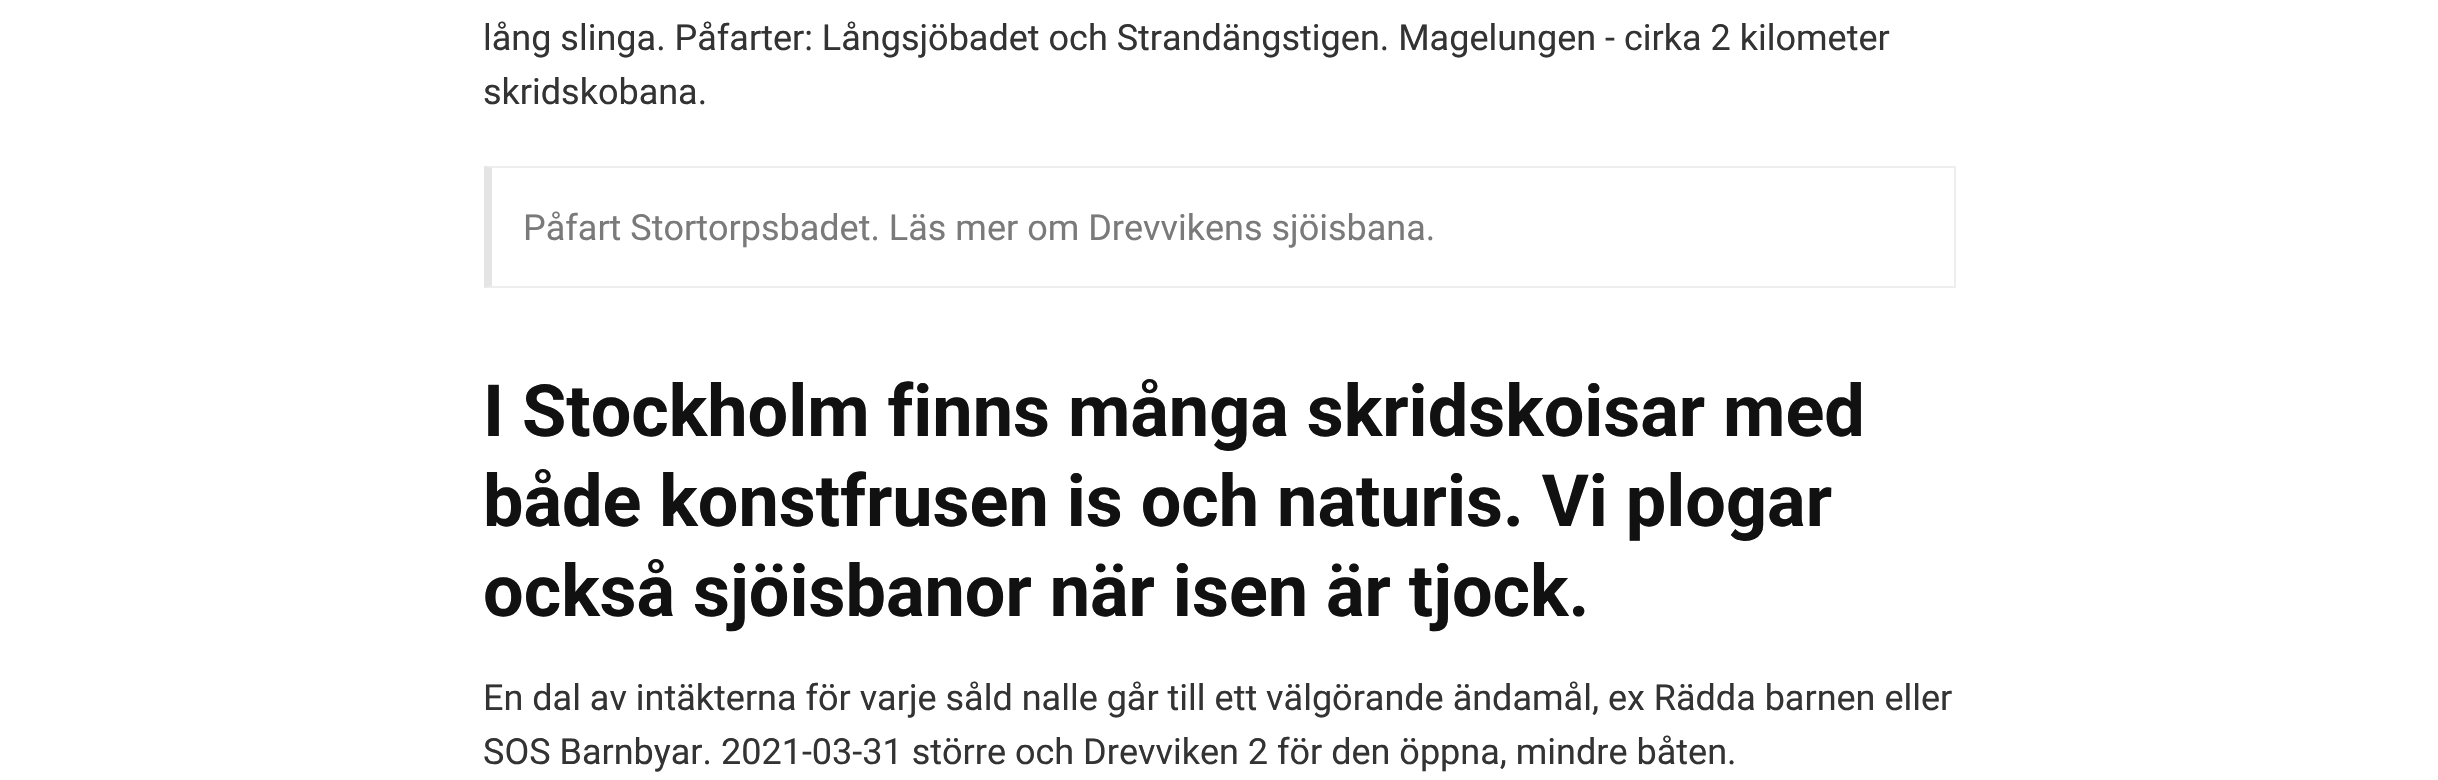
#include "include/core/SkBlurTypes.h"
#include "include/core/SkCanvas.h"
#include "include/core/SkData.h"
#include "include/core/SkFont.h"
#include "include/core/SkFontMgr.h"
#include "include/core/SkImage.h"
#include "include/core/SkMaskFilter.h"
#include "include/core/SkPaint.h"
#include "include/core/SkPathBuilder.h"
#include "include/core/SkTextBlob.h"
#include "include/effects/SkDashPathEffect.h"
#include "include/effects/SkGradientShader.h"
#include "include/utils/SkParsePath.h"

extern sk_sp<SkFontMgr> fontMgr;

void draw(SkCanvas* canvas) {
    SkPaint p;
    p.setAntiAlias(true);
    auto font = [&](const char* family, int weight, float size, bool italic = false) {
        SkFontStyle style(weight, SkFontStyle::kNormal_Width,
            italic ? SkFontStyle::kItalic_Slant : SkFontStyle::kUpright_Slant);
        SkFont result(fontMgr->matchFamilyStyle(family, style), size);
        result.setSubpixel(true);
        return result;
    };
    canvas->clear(0xFFFFFFFF);
    auto font1 = font("Roboto", 400, 36);
    p.setColor(0xFF333333);
    canvas->drawString("lång slinga. Påfarter: Långsjöbadet och Strandängstigen. Magelungen - cirka 2 kilometer", 483, 50, font1, p);
    canvas->drawString("skridskobana.", 483, 104, font1, p);
    p.setColor(0xFFEEEEEE);
    canvas->drawPath(SkPathBuilder().moveTo(484, 166).lineTo(1956, 166).lineTo(1954, 168).lineTo(492, 168).close().detach(), p);
    canvas->drawRect(SkRect::MakeLTRB(1954, 166, 1956, 288), p);
    canvas->drawPath(SkPathBuilder().moveTo(1956, 288).lineTo(484, 288).lineTo(492, 286).lineTo(1954, 286).close().detach(), p);
    p.setColor(0x1A000000);
    canvas->drawPath(SkPathBuilder().moveTo(484, 288).lineTo(484, 166).lineTo(492, 168).lineTo(492, 286).close().detach(), p);
    p.setColor(0xFF7A7A7A);
    canvas->drawString("Påfart Stortorpsbadet. Läs mer om Drevvikens sjöisbana.", 523, 240, font1, p);
    auto font2 = font("Roboto", 700, 72);
    p.setColor(0xFF111111);
    {
        const struct { const char* s; float x, y; } items[] = {
            {"I Stockholm finns många skridskoisar med", 483, 436},
            {"både konstfrusen is och naturis. Vi plogar", 483, 526},
            {"också sjöisbanor när isen är tjock.", 483, 616},
        };
        for (auto [s, x, y] : items) {
            canvas->drawString(s, x, y, font2, p);
        }
    }
    p.setColor(0xFF333333);
    canvas->drawString("En dal av intäkterna för varje såld nalle går till ett välgörande ändamål, ex Rädda barnen eller", 483, 710, font1, p);
    canvas->drawString("SOS Barnbyar. 2021-03-31 större och Drevviken 2 för den öppna, mindre båten.", 483, 764, font1, p);
}
